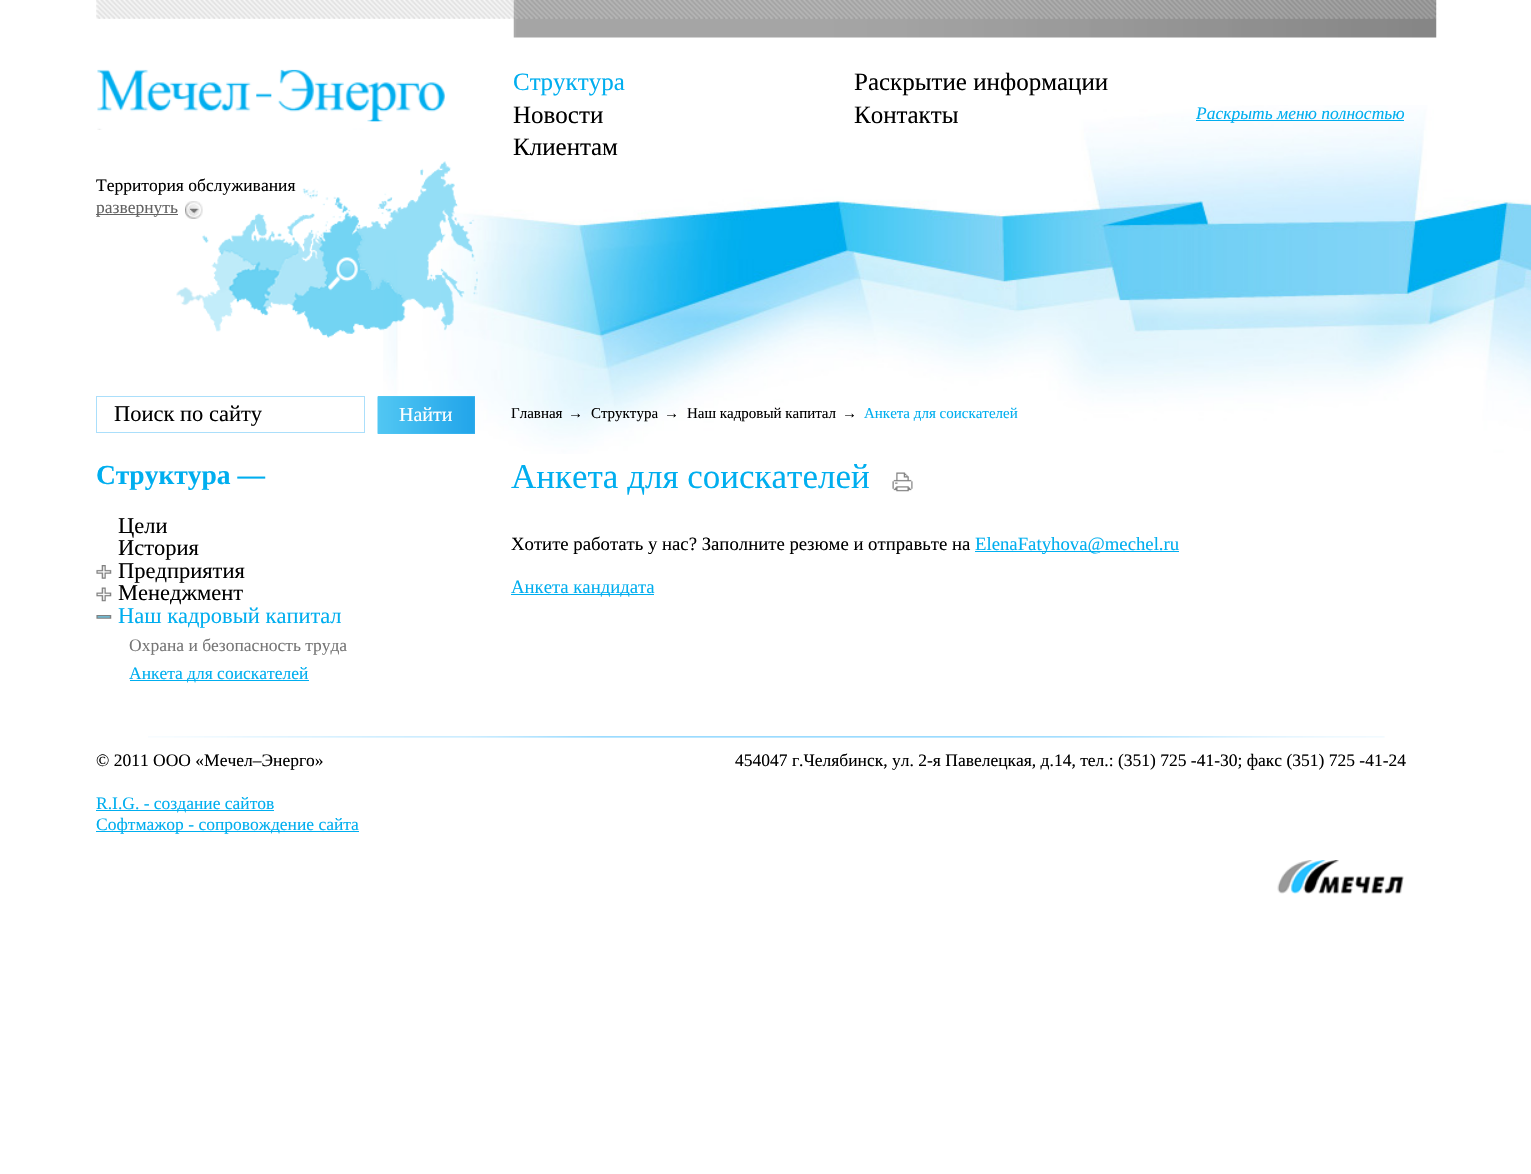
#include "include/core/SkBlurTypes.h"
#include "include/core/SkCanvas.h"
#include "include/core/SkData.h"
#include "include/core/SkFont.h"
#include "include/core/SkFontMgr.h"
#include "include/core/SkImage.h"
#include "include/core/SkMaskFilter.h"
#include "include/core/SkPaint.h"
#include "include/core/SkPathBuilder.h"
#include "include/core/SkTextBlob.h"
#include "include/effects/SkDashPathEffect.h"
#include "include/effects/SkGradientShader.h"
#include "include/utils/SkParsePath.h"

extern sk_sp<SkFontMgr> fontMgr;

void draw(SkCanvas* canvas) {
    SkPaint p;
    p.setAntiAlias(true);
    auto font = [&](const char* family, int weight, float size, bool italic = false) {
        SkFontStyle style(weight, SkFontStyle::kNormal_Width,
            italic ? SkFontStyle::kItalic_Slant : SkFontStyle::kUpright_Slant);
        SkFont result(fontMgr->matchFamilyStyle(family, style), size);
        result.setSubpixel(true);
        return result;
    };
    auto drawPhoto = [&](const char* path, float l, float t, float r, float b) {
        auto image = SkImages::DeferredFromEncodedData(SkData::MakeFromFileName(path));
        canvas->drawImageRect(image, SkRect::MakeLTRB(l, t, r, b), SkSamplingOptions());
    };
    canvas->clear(0xFFFFFFFF);
    drawPhoto("media/1.png", 383, 105, 1531, 454);
    drawPhoto("media/2.png", 96, 0, 1437, 38);
    drawPhoto("media/3.png", 97, 69, 445, 130);
    auto font1 = font("Liberation Serif", 400, 25);
    p.setColor(0xFF00AEEF);
    canvas->drawString("Структура", 513, 90, font1, p);
    p.setColor(0xFF000000);
    {
        const struct { const char* s; float x, y; } items[] = {
            {"Новости", 513, 123},
            {"Клиентам", 513, 155},
            {"Раскрытие информации", 854, 90},
            {"Контакты", 854, 123},
        };
        for (auto [s, x, y] : items) {
            canvas->drawString(s, x, y, font1, p);
        }
    }
    p.setColor(0xFF00AEEF);
    canvas->drawRect(SkRect::MakeLTRB(1196, 120, 1404, 121), p);
    auto font2 = font("Liberation Serif", 400, 17.5f, true);
    canvas->drawString("Раскрыть меню полностью", 1196, 119, font2, p);
    drawPhoto("media/4.png", 176, 161, 478, 338);
    auto font3 = font("Liberation Serif", 400, 17.5f);
    p.setColor(0xFF000000);
    canvas->drawString("Территория обслуживания", 96, 191, font3, p);
    drawPhoto("media/5.png", 185, 201, 203, 219);
    p.setColor(0xFF636363);
    canvas->drawRect(SkRect::MakeLTRB(96, 214, 178, 215), p);
    canvas->drawString("развернуть", 96, 213, font3, p);
    p.setStyle(SkPaint::kStroke_Style);
    p.setStrokeWidth(1);
    p.setColor(0xFFABDFFB);
    canvas->drawRect(SkRect::MakeLTRB(96.5f, 396.5f, 364.5f, 432.5f), p);
    auto font4 = font("Liberation Serif", 400, 22.5f);
    p.setStyle(SkPaint::kFill_Style);
    p.setColor(0xFF000000);
    canvas->drawString("Поиск по сайту", 114, 421, font4, p);
    p.setColor(0xFF57CBF4);
    canvas->drawRect(SkRect::MakeLTRB(378, 396, 475, 434), p);
    drawPhoto("media/6.png", 377, 396, 475, 434);
    auto font5 = font("Liberation Serif", 400, 20);
    p.setColor(0xFFFFFFFF);
    canvas->drawString("Найти", 399, 421, font5, p);
    auto font6 = font("Liberation Serif", 700, 27.5f);
    p.setColor(0xFF00AEEF);
    canvas->drawString("Структура —", 96, 484, font6, p);
    p.setColor(0xFF000000);
    canvas->drawString("Цели", 118, 533, font4, p);
    canvas->drawString("История", 118, 555, font4, p);
    drawPhoto("media/7.png", 96, 565, 112, 579);
    canvas->drawString("Предприятия", 118, 578, font4, p);
    drawPhoto("media/8.png", 96, 587, 112, 602);
    canvas->drawString("Менеджмент", 118, 600, font4, p);
    drawPhoto("media/9.png", 96, 615, 112, 619);
    p.setColor(0xFF00AEEF);
    canvas->drawString("Наш кадровый капитал", 118, 623, font4, p);
    p.setColor(0xFF767676);
    canvas->drawString("Охрана и безопасность труда", 129, 651, font3, p);
    p.setColor(0xFF00AEEF);
    canvas->drawRect(SkRect::MakeLTRB(130, 680, 309, 681), p);
    canvas->drawString("Анкета для соискателей", 129, 679, font3, p);
    auto font7 = font("Liberation Serif", 400, 15);
    p.setColor(0xFF000000);
    {
        const struct { const char* s; float x, y; } items[] = {
            {"Главная", 511, 418},
            {"→", 568, 418},
            {"Структура", 591, 418},
            {"→", 664, 418},
            {"Наш кадровый капитал", 687, 418},
            {"→", 842, 418},
        };
        for (auto [s, x, y] : items) {
            canvas->drawString(s, x, y, font7, p);
        }
    }
    p.setColor(0xFF00AEEF);
    canvas->drawString("Анкета для соискателей", 864, 418, font7, p);
    auto font8 = font("Liberation Serif", 400, 35);
    canvas->drawString("Анкета для соискателей", 511, 488, font8, p);
    drawPhoto("media/10.png", 892, 472, 913, 492);
    auto font9 = font("Liberation Serif", 400, 18.75f);
    p.setColor(0xFF000000);
    canvas->drawString("Хотите работать у нас? Заполните резюме и отправьте на", 511, 550, font9, p);
    p.setColor(0xFF00AEEF);
    canvas->drawRect(SkRect::MakeLTRB(975, 551, 1179, 552), p);
    canvas->drawString("ElenaFatyhova@mechel.ru", 975, 550, font9, p);
    canvas->drawRect(SkRect::MakeLTRB(511, 594, 654, 595), p);
    canvas->drawString("Анкета кандидата", 511, 593, font9, p);
    drawPhoto("media/11.png", 148, 736, 1385, 738);
    p.setColor(0xFF000000);
    canvas->drawString("© 2011 ООО «Мечел–Энерго»", 96, 766, font3, p);
    p.setColor(0xFF00AEEF);
    canvas->drawRect(SkRect::MakeLTRB(96, 810, 274, 811), p);
    canvas->drawString("R.I.G. - создание сайтов", 96, 809, font3, p);
    canvas->drawRect(SkRect::MakeLTRB(96, 831, 359, 832), p);
    canvas->drawString("Софтмажор - сопровождение сайта", 96, 830, font3, p);
    p.setColor(0xFF000000);
    canvas->drawString("454047 г.Челябинск, ул. 2-я Павелецкая, д.14, тел.: (351) 725 -41-30; факс (351) 725 -41-24", 735, 766, font3, p);
    drawPhoto("media/12.png", 1277, 860, 1404, 894);
}
